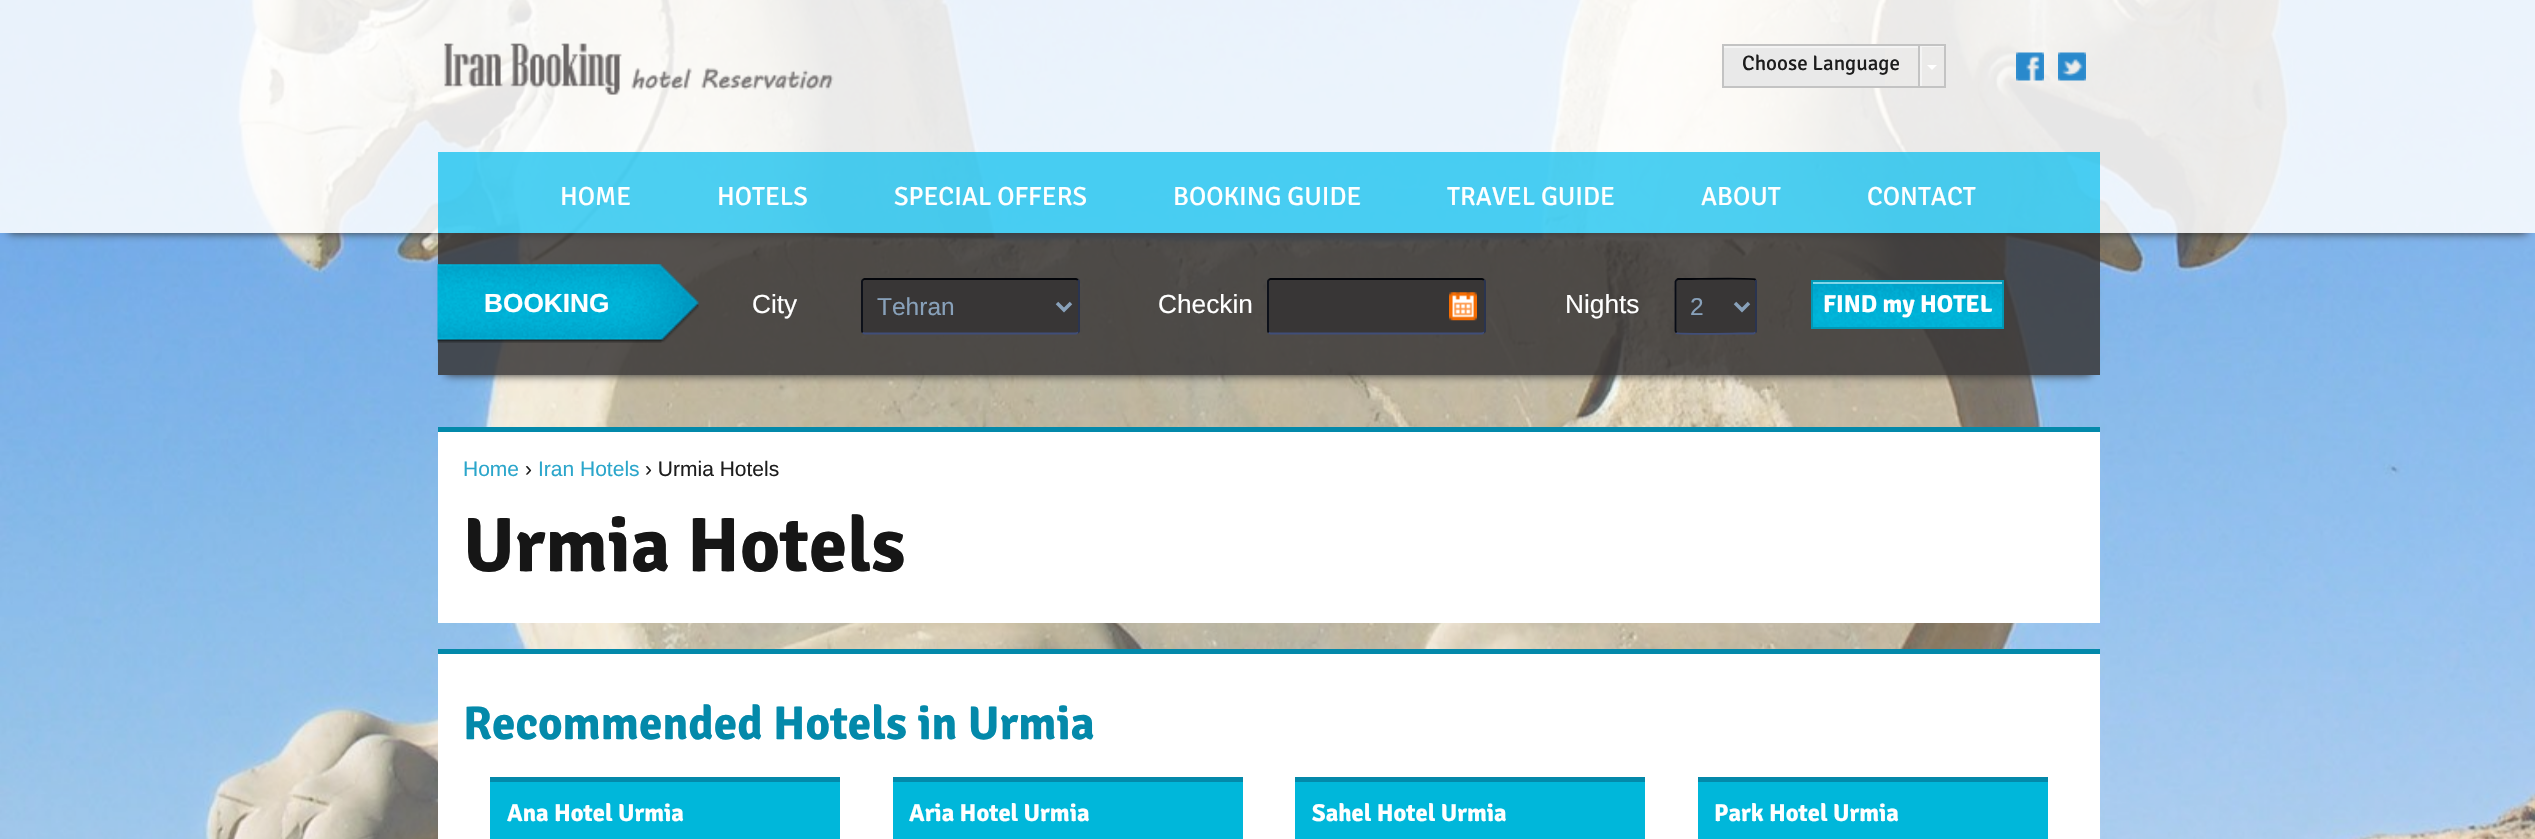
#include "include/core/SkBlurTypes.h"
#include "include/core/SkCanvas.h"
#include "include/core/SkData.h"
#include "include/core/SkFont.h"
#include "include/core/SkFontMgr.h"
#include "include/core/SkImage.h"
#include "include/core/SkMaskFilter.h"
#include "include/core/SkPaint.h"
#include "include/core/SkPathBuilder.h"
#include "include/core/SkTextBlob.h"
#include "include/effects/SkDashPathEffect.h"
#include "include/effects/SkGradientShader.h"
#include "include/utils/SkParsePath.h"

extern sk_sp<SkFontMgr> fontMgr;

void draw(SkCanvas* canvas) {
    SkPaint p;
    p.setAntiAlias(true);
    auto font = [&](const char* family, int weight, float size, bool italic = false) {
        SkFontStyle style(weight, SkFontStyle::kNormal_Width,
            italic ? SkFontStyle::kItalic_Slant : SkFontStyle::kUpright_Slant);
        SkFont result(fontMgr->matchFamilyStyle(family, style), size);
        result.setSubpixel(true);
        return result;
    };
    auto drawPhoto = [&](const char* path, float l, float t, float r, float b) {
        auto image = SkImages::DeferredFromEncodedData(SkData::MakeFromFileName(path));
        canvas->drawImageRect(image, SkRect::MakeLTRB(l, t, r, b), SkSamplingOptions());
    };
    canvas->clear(0xFFFFFFFF);
    drawPhoto("media/1.png", 0, 0, 2535, 839);
    p.setColor(0xD9FFFFFF);
    canvas->drawRect(SkRect::MakeLTRB(0, 0, 2535, 152), p);
    drawPhoto("media/2.png", 444, 43, 834, 95);
    p.setColor(0xFFE9E9E9);
    canvas->drawRect(SkRect::MakeLTRB(1724, 48, 1885, 86), p);
    p.setColor(0xFFF4F4F4);
    canvas->drawRect(SkRect::MakeLTRB(1724, 46, 1918, 48), p);
    p.setStyle(SkPaint::kStroke_Style);
    p.setStrokeWidth(2);
    p.setColor(0xFFC3C3C3);
    canvas->drawRect(SkRect::MakeLTRB(1723, 45, 1945, 87), p);
    auto font1 = font("Signika", 400, 21);
    p.setStyle(SkPaint::kFill_Style);
    p.setColor(0xFF1D1D1D);
    canvas->drawString("Choose Language", 1742, 70, font1, p);
    canvas->save();
    canvas->clipRect(SkRect::MakeLTRB(1920, 46, 1944, 86));
    p.setColor(0xFFF4F4F4);
    canvas->drawPath(SkPathBuilder(SkPathFillType::kEvenOdd).moveTo(1746, -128).lineTo(2118, -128).lineTo(2118, 259).lineTo(1746, 259).close().moveTo(1922, 47).lineTo(1946, 47).lineTo(1946, 88).lineTo(1922, 88).close().detach(), p);
    canvas->restore();
    p.setColor(0xFFC3C3C3);
    canvas->drawRect(SkRect::MakeLTRB(1918, 46, 1920, 86), p);
    p.setColor(0xFFFFFFFF);
    canvas->drawPath(SkPathBuilder().moveTo(1927, 65).lineTo(1937, 65).lineTo(1932, 70).close().detach(), p);
    drawPhoto("media/3.png", 2016, 52, 2044, 81);
    drawPhoto("media/4.png", 2058, 52, 2086, 81);
    canvas->save();
    canvas->clipPath(SkPathBuilder(SkPathFillType::kEvenOdd).moveTo(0, 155).lineTo(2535, 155).lineTo(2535, 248).lineTo(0, 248).close().moveTo(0, 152).lineTo(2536, 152).lineTo(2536, 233).lineTo(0, 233).close().detach(), true);
    p.setColor(0xFF333333);
    p.setMaskFilter(SkMaskFilter::MakeBlur(kNormal_SkBlurStyle, 4.5f));
    canvas->drawRect(SkRect::MakeLTRB(9, 170, 2527, 233), p);
    p.setMaskFilter(nullptr);
    canvas->restore();
    p.setColor(0xD9FFFFFF);
    canvas->drawRect(SkRect::MakeLTRB(0, 152, 2535, 233), p);
    p.setColor(0xB301BCEE);
    canvas->drawRect(SkRect::MakeLTRB(438, 152, 2100, 233), p);
    auto font2 = font("Signika", 400, 26.25f);
    p.setColor(0xFFFFFFFF);
    {
        const struct { const char* s; float x, y; } items[] = {
            {"HOME", 560, 205},
            {"HOTELS", 717, 205},
            {"SPECIAL OFFERS", 894, 205},
            {"BOOKING GUIDE", 1173, 205},
            {"TRAVEL GUIDE", 1447, 205},
            {"ABOUT", 1701, 205},
            {"CONTACT", 1867, 205},
        };
        for (auto [s, x, y] : items) {
            canvas->drawString(s, x, y, font2, p);
        }
    }
    canvas->save();
    canvas->clipPath(SkPathBuilder(SkPathFillType::kEvenOdd).moveTo(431, 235).lineTo(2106, 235).lineTo(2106, 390).lineTo(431, 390).close().moveTo(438, 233).lineTo(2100, 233).lineTo(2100, 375).lineTo(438, 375).close().detach(), true);
    p.setColor(0xFF333333);
    p.setMaskFilter(SkMaskFilter::MakeBlur(kNormal_SkBlurStyle, 4.5f));
    canvas->drawRect(SkRect::MakeLTRB(446, 250, 2091, 375), p);
    p.setMaskFilter(nullptr);
    canvas->restore();
    p.setColor(0xD9383636);
    canvas->drawRect(SkRect::MakeLTRB(438, 233, 2100, 375), p);
    drawPhoto("media/5.png", 437, 264, 699, 343);
    auto font3 = font("Liberation Sans", 700, 26.25f);
    p.setColor(0xFFFFFFFF);
    canvas->drawString("BOOKING", 484, 312, font3, p);
    auto font4 = font("Liberation Sans", 400, 26.25f);
    canvas->drawString("City", 752, 313, font4, p);
    p.setColor(0xFF383636);
    canvas->drawRoundRect(SkRect::MakeLTRB(861, 278, 1080, 334), 4, 4, p);
    p.setStyle(SkPaint::kStroke_Style);
    p.setStrokeWidth(1.8f);
    p.setColor(0xFF03050A);
    canvas->drawPath(SkPathBuilder().moveTo(862.5f, 280).lineTo(864.5f, 279).lineTo(1076, 279).lineTo(1078, 280).detach(), p);
    p.setColor(0xFF283352);
    canvas->drawPath(SkPathBuilder().moveTo(1078, 280).lineTo(1079, 281.5f).lineTo(1079, 331).lineTo(1078, 332.5f).detach(), p);
    p.setColor(0xFF404E79);
    canvas->drawPath(SkPathBuilder().moveTo(1078, 332.5f).lineTo(1076, 333.5f).lineTo(864.5f, 333.5f).lineTo(862.5f, 332.5f).detach(), p);
    p.setColor(0xFF080C16);
    canvas->drawPath(SkPathBuilder().moveTo(862.5f, 332.5f).lineTo(862, 331).lineTo(862, 281.5f).lineTo(862.5f, 280).detach(), p);
    p.setStrokeWidth(3.5f);
    p.setColor(0xFF88A1BA);
    canvas->drawPath(SkPathBuilder().moveTo(1057, 303).lineTo(1064, 310).lineTo(1071, 303).detach(), p);
    auto font5 = font("Liberation Sans", 400, 24.5f);
    p.setStyle(SkPaint::kFill_Style);
    canvas->drawString("Tehran", 877, 315, font5, p);
    p.setColor(0xFFFFFFFF);
    canvas->drawString("Checkin", 1158, 313, font4, p);
    p.setColor(0xFF383636);
    canvas->drawRoundRect(SkRect::MakeLTRB(1267, 278, 1486, 334), 4, 4, p);
    p.setStyle(SkPaint::kStroke_Style);
    p.setStrokeWidth(1.8f);
    p.setColor(0xFF03050A);
    canvas->drawPath(SkPathBuilder().moveTo(1268.5f, 280).lineTo(1270.5f, 279).lineTo(1482, 279).lineTo(1484, 280).detach(), p);
    p.setColor(0xFF283352);
    canvas->drawPath(SkPathBuilder().moveTo(1484, 280).lineTo(1485, 281.5f).lineTo(1485, 331).lineTo(1484, 332.5f).detach(), p);
    p.setColor(0xFF404E79);
    canvas->drawPath(SkPathBuilder().moveTo(1484, 332.5f).lineTo(1482, 333.5f).lineTo(1270.5f, 333.5f).lineTo(1268.5f, 332.5f).detach(), p);
    p.setColor(0xFF080C16);
    canvas->drawPath(SkPathBuilder().moveTo(1268.5f, 332.5f).lineTo(1268, 331).lineTo(1268, 281.5f).lineTo(1268.5f, 280).detach(), p);
    drawPhoto("media/6.png", 1449, 292, 1477, 321);
    p.setStyle(SkPaint::kFill_Style);
    p.setColor(0xFFFFFFFF);
    canvas->drawString("Nights", 1565, 313, font4, p);
    p.setColor(0xFF383636);
    canvas->drawRoundRect(SkRect::MakeLTRB(1675, 278, 1757, 334), 4, 4, p);
    p.setStyle(SkPaint::kStroke_Style);
    p.setColor(0xFF03050A);
    canvas->drawPath(SkPathBuilder().moveTo(1676.5f, 280).lineTo(1678, 279).lineTo(1691, 279).cubicTo(1698, 279, 1753, 278, 1755, 279.5f).lineTo(1755.5f, 280).detach(), p);
    p.setColor(0xFF283352);
    canvas->drawPath(SkPathBuilder().moveTo(1755.5f, 280).lineTo(1756, 281.5f).lineTo(1756, 331).lineTo(1755.5f, 332.5f).detach(), p);
    p.setColor(0xFF404E79);
    canvas->drawPath(SkPathBuilder().moveTo(1755.5f, 332.5f).lineTo(1753.5f, 333.5f).lineTo(1741, 333.5f).cubicTo(1734, 333.5f, 1678.5f, 334.5f, 1676.5f, 333).lineTo(1676.5f, 332.5f).detach(), p);
    p.setColor(0xFF080C16);
    canvas->drawPath(SkPathBuilder().moveTo(1676.5f, 332.5f).lineTo(1675.5f, 331).lineTo(1675.5f, 281.5f).lineTo(1676.5f, 280).detach(), p);
    p.setStrokeWidth(3.5f);
    p.setColor(0xFF88A1BA);
    canvas->drawPath(SkPathBuilder().moveTo(1735, 303).lineTo(1742, 310).lineTo(1749, 303).detach(), p);
    p.setStyle(SkPaint::kFill_Style);
    canvas->drawString("2", 1690, 315, font5, p);
    drawPhoto("media/7.png", 1813, 282, 2002, 327);
    p.setColor(0x80FFFFFF);
    canvas->drawRect(SkRect::MakeLTRB(1813, 282, 2002, 284), p);
    p.setStyle(SkPaint::kStroke_Style);
    p.setStrokeWidth(2);
    p.setColor(0xFF0199B6);
    canvas->drawRect(SkRect::MakeLTRB(1812, 281, 2003, 328), p);
    auto font6 = font("Signika", 700, 24.5f);
    p.setStyle(SkPaint::kFill_Style);
    p.setColor(0xFFFFFFFF);
    canvas->drawString("FIND my HOTEL", 1823, 312, font6, p);
    canvas->drawRect(SkRect::MakeLTRB(438, 432, 2100, 623), p);
    p.setColor(0xFF0389AA);
    canvas->drawRect(SkRect::MakeLTRB(438, 427, 2100, 432), p);
    auto font7 = font("Liberation Sans", 400, 21);
    p.setColor(0xFF2BA6CB);
    canvas->drawString("Home", 463, 476, font7, p);
    p.setColor(0xFF1D1D1D);
    canvas->drawString("›", 525, 476, font7, p);
    p.setColor(0xFF2BA6CB);
    canvas->drawString("Iran Hotels", 538, 476, font7, p);
    p.setColor(0xFF1D1D1D);
    canvas->drawString("› Urmia Hotels", 645, 476, font7, p);
    auto font8 = font("Signika", 700, 77);
    p.setColor(0xFF161616);
    canvas->drawString("Urmia Hotels", 463, 571, font8, p);
    p.setColor(0xFFFFFFFF);
    canvas->drawRect(SkRect::MakeLTRB(438, 654, 2100, 839), p);
    p.setColor(0xFF0389AA);
    canvas->drawRect(SkRect::MakeLTRB(438, 649, 2100, 654), p);
    auto font9 = font("Signika", 700, 47.25f);
    canvas->drawString("Recommended Hotels in Urmia", 463, 739, font9, p);
    p.setColor(0xFF00B7DA);
    canvas->drawRect(SkRect::MakeLTRB(490, 782, 840, 839), p);
    p.setColor(0xFF0389AA);
    canvas->drawRect(SkRect::MakeLTRB(490, 777, 840, 782), p);
    p.setColor(0xFFFFFFFF);
    canvas->drawString("Ana Hotel Urmia", 507, 821, font6, p);
    p.setColor(0xFF00B7DA);
    canvas->drawRect(SkRect::MakeLTRB(893, 782, 1243, 839), p);
    p.setColor(0xFF0389AA);
    canvas->drawRect(SkRect::MakeLTRB(893, 777, 1243, 782), p);
    p.setColor(0xFFFFFFFF);
    canvas->drawString("Aria Hotel Urmia", 909, 821, font6, p);
    p.setColor(0xFF00B7DA);
    canvas->drawRect(SkRect::MakeLTRB(1295, 782, 1645, 839), p);
    p.setColor(0xFF0389AA);
    canvas->drawRect(SkRect::MakeLTRB(1295, 777, 1645, 782), p);
    p.setColor(0xFFFFFFFF);
    canvas->drawString("Sahel Hotel Urmia", 1312, 821, font6, p);
    p.setColor(0xFF00B7DA);
    canvas->drawRect(SkRect::MakeLTRB(1698, 782, 2048, 839), p);
    p.setColor(0xFF0389AA);
    canvas->drawRect(SkRect::MakeLTRB(1698, 777, 2048, 782), p);
    p.setColor(0xFFFFFFFF);
    canvas->drawString("Park Hotel Urmia", 1714, 821, font6, p);
}
